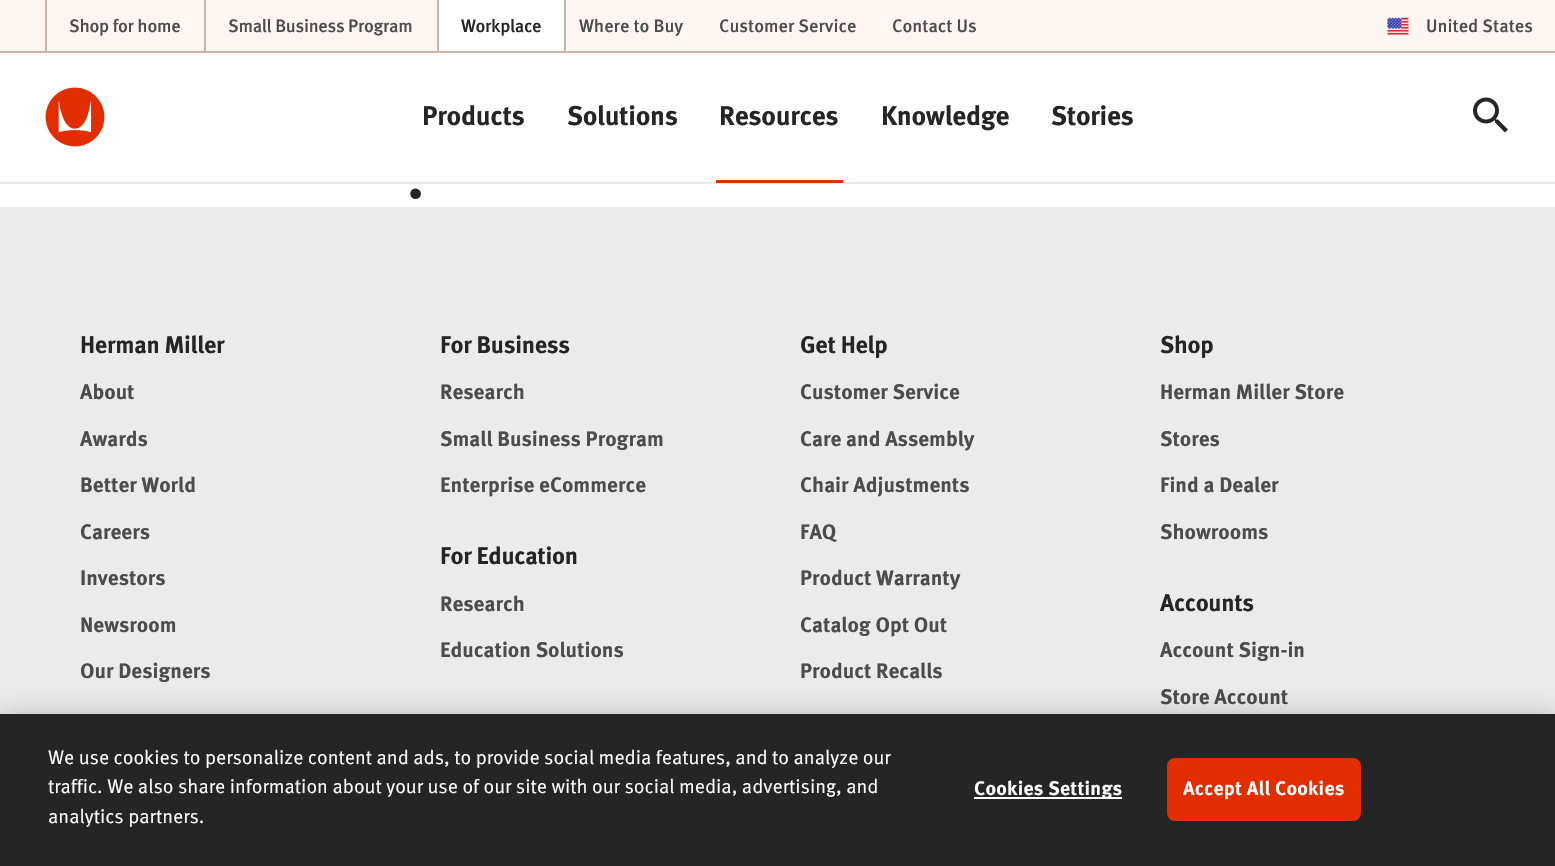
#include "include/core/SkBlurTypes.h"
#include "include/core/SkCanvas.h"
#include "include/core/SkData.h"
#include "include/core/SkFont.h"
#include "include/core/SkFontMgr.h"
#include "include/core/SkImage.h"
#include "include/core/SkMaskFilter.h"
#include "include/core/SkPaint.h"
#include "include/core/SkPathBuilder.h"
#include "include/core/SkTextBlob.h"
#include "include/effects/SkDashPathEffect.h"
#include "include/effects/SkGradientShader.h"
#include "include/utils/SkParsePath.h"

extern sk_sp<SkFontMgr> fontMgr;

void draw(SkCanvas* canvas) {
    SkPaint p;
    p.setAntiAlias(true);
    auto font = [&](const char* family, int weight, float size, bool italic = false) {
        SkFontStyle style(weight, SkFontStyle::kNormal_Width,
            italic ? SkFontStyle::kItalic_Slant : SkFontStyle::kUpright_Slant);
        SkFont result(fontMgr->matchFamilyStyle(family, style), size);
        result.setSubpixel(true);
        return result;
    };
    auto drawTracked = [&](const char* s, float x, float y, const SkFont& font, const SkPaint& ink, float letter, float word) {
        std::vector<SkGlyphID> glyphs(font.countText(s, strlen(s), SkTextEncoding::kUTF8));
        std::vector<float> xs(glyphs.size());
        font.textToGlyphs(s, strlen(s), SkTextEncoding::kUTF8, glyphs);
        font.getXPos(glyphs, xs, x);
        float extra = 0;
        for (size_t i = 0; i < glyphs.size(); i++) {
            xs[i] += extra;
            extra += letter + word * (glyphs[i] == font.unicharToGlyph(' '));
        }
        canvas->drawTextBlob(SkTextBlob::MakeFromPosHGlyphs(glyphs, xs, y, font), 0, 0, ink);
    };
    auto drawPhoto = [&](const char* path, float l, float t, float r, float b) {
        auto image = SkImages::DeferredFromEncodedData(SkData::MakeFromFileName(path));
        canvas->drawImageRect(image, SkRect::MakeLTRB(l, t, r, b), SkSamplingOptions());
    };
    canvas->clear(0xFFFFFFFF);
    {
        const struct { float l, t, r, b; SkColor color; } items[] = {
            {0, 0, 1555, 51, 0xFFFFF6F4},
            {0, 51, 1555, 53, 0xFFCEB4A9},
            {203, 0, 204, 51, 0xFFFBF4F4},
            {45, 0, 47, 51, 0xFFCEB4A9},
        };
        for (auto [l, t, r, b, color] : items) {
            p.setColor(color);
            canvas->drawRect(SkRect::MakeLTRB(l, t, r, b), p);
        }
    }
    auto font1 = font("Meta", 500, 18);
    p.setColor(0xFF4C4C4C);
    drawTracked("Shop for home", 69, 32, font1, p, -0.3f, 0);
    p.setColor(0xFFFBF4F4);
    canvas->drawRect(SkRect::MakeLTRB(435, 0, 437, 51), p);
    p.setColor(0xFFCEB4A9);
    canvas->drawRect(SkRect::MakeLTRB(204, 0, 206, 51), p);
    p.setColor(0xFF4C4C4C);
    drawTracked("Small Business Program", 228, 32, font1, p, -0.3f, 0);
    {
        const struct { float l, t, r, b; SkColor color; } items[] = {
            {439, 0, 564, 51, 0xFFFFFFFF},
            {564, 0, 566, 51, 0xFFCEB4A9},
            {437, 0, 439, 51, 0xFFCEB4A9},
        };
        for (auto [l, t, r, b, color] : items) {
            p.setColor(color);
            canvas->drawRect(SkRect::MakeLTRB(l, t, r, b), p);
        }
    }
    p.setColor(0xFF252525);
    drawTracked("Workplace", 461, 32, font1, p, -0.3f, 0);
    p.setColor(0xFF4C4C4C);
    {
        const struct { const char* s; float x, y; } items[] = {
            {"Where to Buy", 579, 32},
            {"Customer Service", 719, 32},
            {"Contact Us", 892, 32},
        };
        for (auto [s, x, y] : items) {
            canvas->drawString(s, x, y, font1, p);
        }
    }
    drawPhoto("media/1.png", 1387, 17, 1409, 35);
    canvas->drawString("United States", 1426, 32, font1, p);
    p.setColor(0xFFEBEBEB);
    canvas->drawRect(SkRect::MakeLTRB(0, 182, 1555, 184), p);
    drawPhoto("media/2.png", 45, 87, 105, 147);
    auto font2 = font("Meta", 700, 27);
    p.setColor(0xFF252525);
    {
        const struct { const char* s; float x, y; } items[] = {
            {"Products", 422, 125},
            {"Solutions", 567, 125},
            {"Resources", 719, 125},
        };
        for (auto [s, x, y] : items) {
            drawTracked(s, x, y, font2, p, -0.3f, 0);
        }
    }
    p.setColor(0xFFE22D00);
    canvas->drawRect(SkRect::MakeLTRB(716, 180, 843, 183), p);
    p.setColor(0xFF252525);
    drawTracked("Knowledge", 881, 125, font2, p, -0.3f, 0);
    drawTracked("Stories", 1051, 125, font2, p, -0.3f, 0);
    drawPhoto("media/3.png", 1473, 97, 1508, 133);
    auto font3 = font("Meta", 700, 60);
    drawTracked(".", 407, 198, font3, p, -1, 0);
    p.setColor(0xFFEBEBEB);
    canvas->drawRect(SkRect::MakeLTRB(0, 207, 1555, 714), p);
    auto font4 = font("Meta", 700, 24);
    p.setColor(0xFF252525);
    drawTracked("Herman Miller", 80, 353, font4, p, -0.3f, 0);
    auto font5 = font("Meta", 700, 21);
    p.setColor(0xFF4C4C4C);
    {
        const struct { const char* s; float x, y; } items[] = {
            {"About", 80, 399},
            {"Awards", 80, 446},
            {"Better World", 80, 492},
            {"Careers", 80, 539},
            {"Investors", 80, 585},
            {"Newsroom", 80, 632},
            {"Our Designers", 80, 678},
        };
        for (auto [s, x, y] : items) {
            canvas->drawString(s, x, y, font5, p);
        }
    }
    p.setColor(0xFF252525);
    drawTracked("For Business", 440, 353, font4, p, -0.3f, 0);
    p.setColor(0xFF4C4C4C);
    {
        const struct { const char* s; float x, y; } items[] = {
            {"Research", 440, 399},
            {"Small Business Program", 440, 446},
            {"Enterprise eCommerce", 440, 492},
        };
        for (auto [s, x, y] : items) {
            canvas->drawString(s, x, y, font5, p);
        }
    }
    p.setColor(0xFF252525);
    drawTracked("For Education", 440, 564, font4, p, -0.3f, 0);
    p.setColor(0xFF4C4C4C);
    canvas->drawString("Research", 440, 611, font5, p);
    canvas->drawString("Education Solutions", 440, 657, font5, p);
    p.setColor(0xFF252525);
    drawTracked("Get Help", 800, 353, font4, p, -0.3f, 0);
    p.setColor(0xFF4C4C4C);
    {
        const struct { const char* s; float x, y; } items[] = {
            {"Customer Service", 800, 399},
            {"Care and Assembly", 800, 446},
            {"Chair Adjustments", 800, 492},
            {"FAQ", 800, 539},
            {"Product Warranty", 800, 585},
            {"Catalog Opt Out", 800, 632},
            {"Product Recalls", 800, 678},
        };
        for (auto [s, x, y] : items) {
            canvas->drawString(s, x, y, font5, p);
        }
    }
    p.setColor(0xFF252525);
    drawTracked("Shop", 1160, 353, font4, p, -0.3f, 0);
    p.setColor(0xFF4C4C4C);
    {
        const struct { const char* s; float x, y; } items[] = {
            {"Herman Miller Store", 1160, 399},
            {"Stores", 1160, 446},
            {"Find a Dealer", 1160, 492},
            {"Showrooms", 1160, 539},
        };
        for (auto [s, x, y] : items) {
            canvas->drawString(s, x, y, font5, p);
        }
    }
    p.setColor(0xFF252525);
    drawTracked("Accounts", 1160, 611, font4, p, -0.3f, 0);
    p.setColor(0xFF4C4C4C);
    canvas->drawString("Account Sign-in", 1160, 657, font5, p);
    canvas->drawString("Store Account", 1160, 704, font5, p);
    p.setColor(0x33000000);
    p.setMaskFilter(SkMaskFilter::MakeBlur(kNormal_SkBlurStyle, 13.5f));
    canvas->drawRect(SkRect::MakeLTRB(0, 714, 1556, 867), p);
    p.setMaskFilter(nullptr);
    p.setColor(0xFF252525);
    canvas->drawRect(SkRect::MakeLTRB(0, 714, 1555, 866), p);
    auto font6 = font("Meta", 400, 19.5f);
    p.setColor(0xFFFFFFFF);
    {
        const struct { const char* s; float x, y; } items[] = {
            {"We use cookies to personalize content and ads, to provide social media features, and to analyze our", 48, 764},
            {"traffic. We also share information about your use of our site with our social media, advertising, and", 48, 793},
            {"analytics partners.", 48, 823},
        };
        for (auto [s, x, y] : items) {
            canvas->drawString(s, x, y, font6, p);
        }
    }
    canvas->drawRect(SkRect::MakeLTRB(974, 797, 1122, 799), p);
    auto font7 = font("Meta", 700, 19.5f);
    drawTracked("Cookies Settings", 974, 795, font7, p, 0.25f, 0);
    p.setColor(0xFFE22D00);
    canvas->drawRoundRect(SkRect::MakeLTRB(1168, 759, 1360, 820), 7, 7, p);
    p.setStyle(SkPaint::kStroke_Style);
    p.setStrokeWidth(2);
    canvas->drawRoundRect(SkRect::MakeLTRB(1168, 759, 1360, 820), 7, 7, p);
    p.setStyle(SkPaint::kFill_Style);
    p.setColor(0xFFFFFFFF);
    drawTracked("Accept All Cookies", 1183, 795, font7, p, 0.25f, 0);
}
